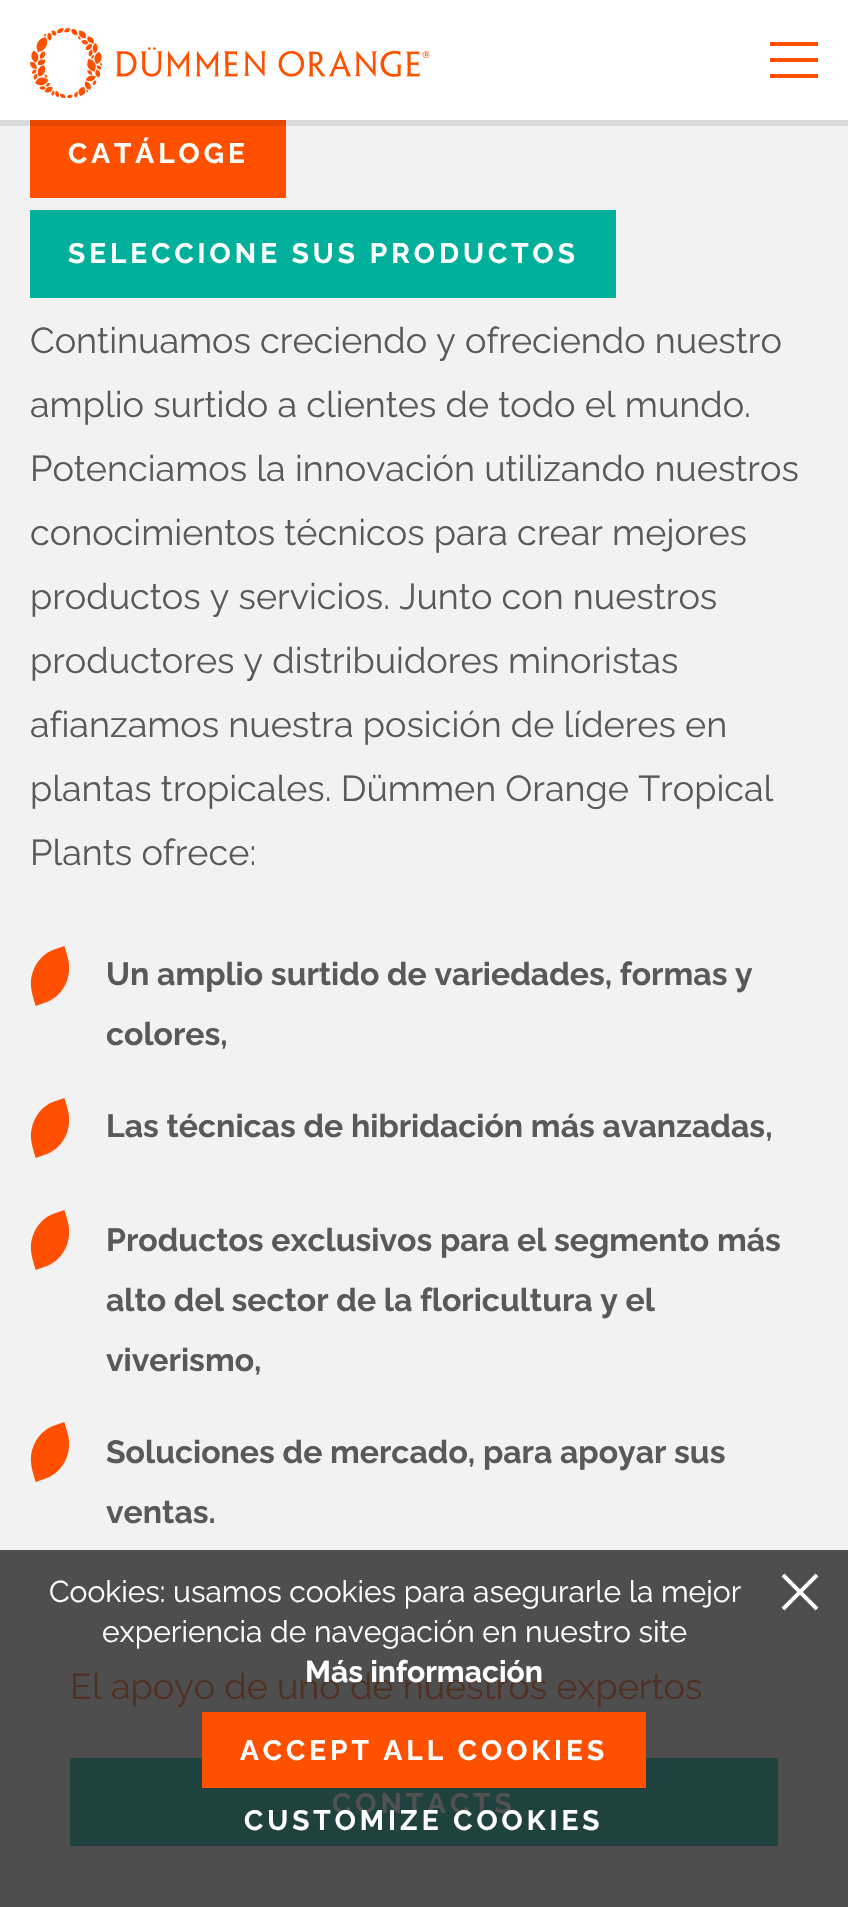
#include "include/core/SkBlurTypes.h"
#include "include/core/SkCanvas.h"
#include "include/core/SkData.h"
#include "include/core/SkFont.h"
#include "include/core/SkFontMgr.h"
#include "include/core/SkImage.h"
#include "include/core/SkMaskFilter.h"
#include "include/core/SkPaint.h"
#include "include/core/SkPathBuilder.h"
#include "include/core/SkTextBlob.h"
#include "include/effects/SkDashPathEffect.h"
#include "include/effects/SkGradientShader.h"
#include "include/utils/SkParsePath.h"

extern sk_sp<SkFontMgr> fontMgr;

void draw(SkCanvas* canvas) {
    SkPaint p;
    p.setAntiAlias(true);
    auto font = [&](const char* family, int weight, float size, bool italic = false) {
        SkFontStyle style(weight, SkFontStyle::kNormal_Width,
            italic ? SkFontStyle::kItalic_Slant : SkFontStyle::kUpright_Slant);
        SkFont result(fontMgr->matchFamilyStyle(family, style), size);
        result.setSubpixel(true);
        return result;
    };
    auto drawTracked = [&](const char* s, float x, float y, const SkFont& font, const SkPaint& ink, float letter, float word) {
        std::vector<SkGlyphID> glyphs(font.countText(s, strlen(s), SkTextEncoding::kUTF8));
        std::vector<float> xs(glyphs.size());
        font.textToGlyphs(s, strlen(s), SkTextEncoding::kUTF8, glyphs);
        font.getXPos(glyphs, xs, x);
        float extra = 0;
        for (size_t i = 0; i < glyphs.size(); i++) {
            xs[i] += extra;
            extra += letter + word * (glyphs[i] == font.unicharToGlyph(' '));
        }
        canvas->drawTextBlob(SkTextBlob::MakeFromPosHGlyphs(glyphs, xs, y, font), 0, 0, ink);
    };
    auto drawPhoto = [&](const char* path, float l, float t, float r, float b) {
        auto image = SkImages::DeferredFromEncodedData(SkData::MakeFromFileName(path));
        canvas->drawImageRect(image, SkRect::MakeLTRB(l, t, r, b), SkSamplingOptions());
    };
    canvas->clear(0xFFF2F2F2);
    p.setColor(0xFFFFFFFF);
    canvas->drawRect(SkRect::MakeLTRB(0, 0, 848, 120), p);
    drawPhoto("media/1.png", 30, 28, 430, 98);
    {
        const struct { float l, t, r, b; SkColor color; } items[] = {
            {770, 42, 818, 46, 0xFFFF5000},
            {770, 58, 818, 62, 0xFFFF5000},
            {770, 74, 818, 78, 0xFFFF5000},
            {0, 1550, 848, 1907, 0xFF4E4E4E},
            {0, 120, 848, 126, 0xFFDADADA},
            {30, 126, 286, 198, 0xFFFF5000},
            {30, 120, 286, 126, 0xFFE64800},
        };
        for (auto [l, t, r, b, color] : items) {
            p.setColor(color);
            canvas->drawRect(SkRect::MakeLTRB(l, t, r, b), p);
        }
    }
    auto font1 = font("Raleway", 700, 28);
    p.setColor(0xFFFFFFFF);
    drawTracked("CATÁLOGE", 68, 163, font1, p, 4, 0);
    p.setColor(0xFF00B09B);
    canvas->drawRect(SkRect::MakeLTRB(30, 210, 616, 298), p);
    p.setColor(0xFFFFFFFF);
    drawTracked("SELECCIONE SUS PRODUCTOS", 68, 263, font1, p, 4, 0);
    auto font2 = font("Raleway", 400, 36);
    p.setColor(0xFF59595B);
    {
        const struct { const char* s; float x, y; } items[] = {
            {"Continuamos creciendo y ofreciendo nuestro", 30, 353},
            {"amplio surtido a clientes de todo el mundo.", 30, 417},
            {"Potenciamos la innovación utilizando nuestros", 30, 481},
            {"conocimientos técnicos para crear mejores", 30, 545},
            {"productos y servicios. Junto con nuestros", 30, 609},
            {"productores y distribuidores minoristas", 30, 673},
            {"afianzamos nuestra posición de líderes en", 30, 737},
            {"plantas tropicales. Dümmen Orange Tropical", 30, 801},
            {"Plants ofrece:", 30, 865},
        };
        for (auto [s, x, y] : items) {
            canvas->drawString(s, x, y, font2, p);
        }
    }
    drawPhoto("media/2.png", 30, 946, 70, 1006);
    auto font3 = font("Raleway", 700, 32);
    canvas->drawString("Un amplio surtido de variedades, formas y", 106, 985, font3, p);
    canvas->drawString("colores,", 106, 1045, font3, p);
    drawPhoto("media/3.png", 30, 1098, 70, 1158);
    canvas->drawString("Las técnicas de hibridación más avanzadas,", 106, 1137, font3, p);
    drawPhoto("media/2.png", 30, 1210, 70, 1270);
    {
        const struct { const char* s; float x, y; } items[] = {
            {"Productos exclusivos para el segmento más", 106, 1251},
            {"alto del sector de la floricultura y el", 106, 1311},
            {"viverismo,", 106, 1371},
        };
        for (auto [s, x, y] : items) {
            canvas->drawString(s, x, y, font3, p);
        }
    }
    drawPhoto("media/2.png", 30, 1422, 70, 1482);
    canvas->drawString("Soluciones de mercado, para apoyar sus", 106, 1463, font3, p);
    canvas->drawString("ventas.", 106, 1523, font3, p);
    p.setColor(0xFF503020);
    canvas->drawString("El apoyo de uno de nuestros expertos", 70, 1699, font2, p);
    p.setColor(0xFF20423E);
    canvas->drawRect(SkRect::MakeLTRB(70, 1758, 778, 1846), p);
    p.setColor(0xFF515151);
    drawTracked("CONTACTS", 332, 1813, font1, p, 4, 0);
    auto font4 = font("Raleway", 400, 30);
    p.setColor(0xFFFFFFFF);
    canvas->drawString("Cookies: usamos cookies para asegurarle la mejor", 49, 1602, font4, p);
    canvas->drawString("experiencia de navegación en nuestro site", 102, 1642, font4, p);
    auto font5 = font("Raleway", 700, 30);
    canvas->drawString("Más información", 305, 1682, font5, p);
    drawPhoto("media/4.png", 781, 1573, 819, 1611);
    p.setColor(0xFFFF5000);
    canvas->drawRect(SkRect::MakeLTRB(202, 1712, 646, 1788), p);
    p.setColor(0xFFFFFFFF);
    drawTracked("ACCEPT ALL COOKIES", 240, 1760, font1, p, 4, 0);
    drawTracked("CUSTOMIZE COOKIES", 244, 1830, font1, p, 4, 0);
}
